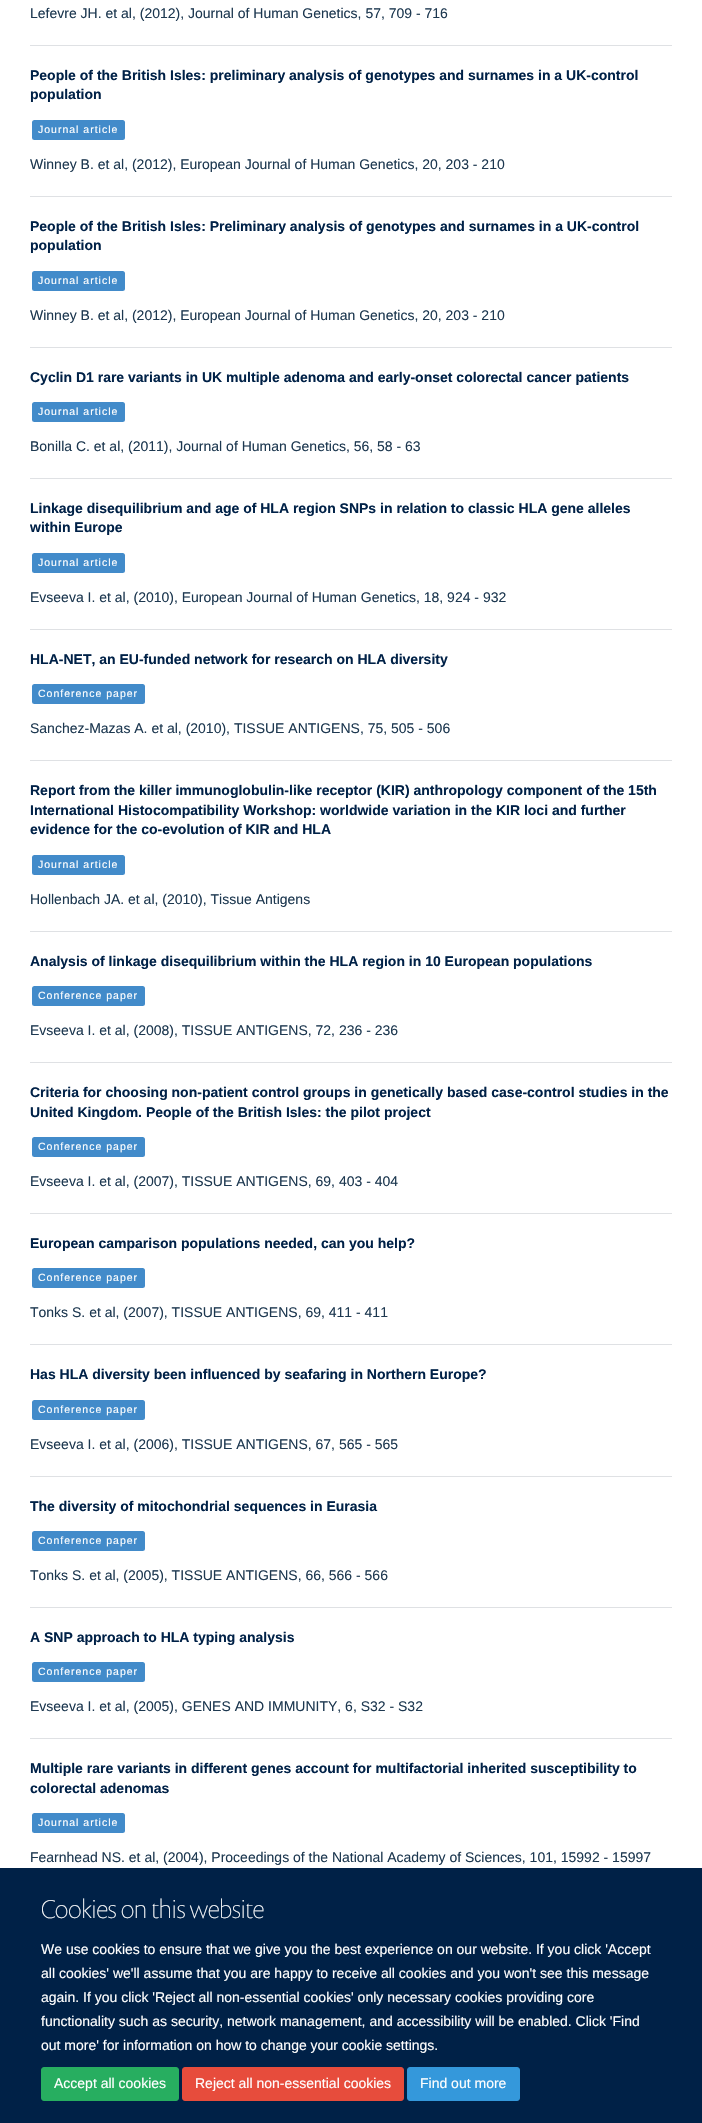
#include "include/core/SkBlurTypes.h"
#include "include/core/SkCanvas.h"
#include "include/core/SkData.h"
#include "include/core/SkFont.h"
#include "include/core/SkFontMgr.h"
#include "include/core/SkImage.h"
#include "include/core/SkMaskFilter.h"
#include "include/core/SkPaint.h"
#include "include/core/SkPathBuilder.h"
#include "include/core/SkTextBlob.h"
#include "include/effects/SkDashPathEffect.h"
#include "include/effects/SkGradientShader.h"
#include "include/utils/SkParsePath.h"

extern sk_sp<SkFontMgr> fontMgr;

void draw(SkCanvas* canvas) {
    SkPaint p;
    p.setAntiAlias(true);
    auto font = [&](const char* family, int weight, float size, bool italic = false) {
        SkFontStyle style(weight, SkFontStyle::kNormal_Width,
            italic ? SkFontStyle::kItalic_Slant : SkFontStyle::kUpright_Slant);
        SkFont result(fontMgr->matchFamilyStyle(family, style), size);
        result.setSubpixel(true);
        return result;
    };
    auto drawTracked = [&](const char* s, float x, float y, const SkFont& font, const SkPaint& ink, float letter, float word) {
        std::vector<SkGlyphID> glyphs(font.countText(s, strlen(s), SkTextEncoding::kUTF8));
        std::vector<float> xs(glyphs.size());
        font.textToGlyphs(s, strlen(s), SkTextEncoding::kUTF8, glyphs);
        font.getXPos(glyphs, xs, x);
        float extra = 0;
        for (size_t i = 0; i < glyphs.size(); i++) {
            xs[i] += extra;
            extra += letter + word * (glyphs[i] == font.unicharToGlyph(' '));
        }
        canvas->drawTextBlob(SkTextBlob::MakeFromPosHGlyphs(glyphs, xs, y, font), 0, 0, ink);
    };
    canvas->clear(0xFFFFFFFF);
    p.setColor(0xFFDFE1E4);
    canvas->drawRect(SkRect::MakeLTRB(30, 45, 672, 46), p);
    auto font1 = font("Liberation Sans", 400, 14);
    p.setColor(0xFF1D3850);
    canvas->drawString("Lefevre JH. et al, (2012), Journal of Human Genetics, 57, 709 - 716", 30, 18, font1, p);
    p.setColor(0xFFDFE1E4);
    canvas->drawRect(SkRect::MakeLTRB(30, 196, 672, 197), p);
    auto font2 = font("Liberation Sans", 700, 14);
    p.setColor(0xFF002147);
    canvas->drawString("People of the British Isles: preliminary analysis of genotypes and surnames in a UK-control", 30, 80, font2, p);
    canvas->drawString("population", 30, 99, font2, p);
    p.setColor(0xFF428BCA);
    canvas->drawRoundRect(SkRect::MakeLTRB(32, 120, 125, 140), 2.5f, 2.5f, p);
    auto font3 = font("Liberation Sans", 400, 10.5f);
    p.setColor(0xFFFFFFFF);
    drawTracked("Journal article", 38, 133, font3, p, 1, 0);
    p.setColor(0xFF1D3850);
    canvas->drawString("Winney B. et al, (2012), European Journal of Human Genetics, 20, 203 - 210", 30, 169, font1, p);
    p.setColor(0xFFDFE1E4);
    canvas->drawRect(SkRect::MakeLTRB(30, 347, 672, 348), p);
    p.setColor(0xFF002147);
    canvas->drawString("People of the British Isles: Preliminary analysis of genotypes and surnames in a UK-control", 30, 231, font2, p);
    canvas->drawString("population", 30, 250, font2, p);
    p.setColor(0xFF428BCA);
    canvas->drawRoundRect(SkRect::MakeLTRB(32, 271, 125, 291), 2.5f, 2.5f, p);
    p.setColor(0xFFFFFFFF);
    drawTracked("Journal article", 38, 284, font3, p, 1, 0);
    p.setColor(0xFF1D3850);
    canvas->drawString("Winney B. et al, (2012), European Journal of Human Genetics, 20, 203 - 210", 30, 320, font1, p);
    p.setColor(0xFFDFE1E4);
    canvas->drawRect(SkRect::MakeLTRB(30, 478, 672, 479), p);
    p.setColor(0xFF002147);
    canvas->drawString("Cyclin D1 rare variants in UK multiple adenoma and early-onset colorectal cancer patients", 30, 382, font2, p);
    p.setColor(0xFF428BCA);
    canvas->drawRoundRect(SkRect::MakeLTRB(32, 402, 125, 422), 2.5f, 2.5f, p);
    p.setColor(0xFFFFFFFF);
    drawTracked("Journal article", 38, 415, font3, p, 1, 0);
    p.setColor(0xFF1D3850);
    canvas->drawString("Bonilla C. et al, (2011), Journal of Human Genetics, 56, 58 - 63", 30, 451, font1, p);
    p.setColor(0xFFDFE1E4);
    canvas->drawRect(SkRect::MakeLTRB(30, 629, 672, 630), p);
    p.setColor(0xFF002147);
    canvas->drawString("Linkage disequilibrium and age of HLA region SNPs in relation to classic HLA gene alleles", 30, 513, font2, p);
    canvas->drawString("within Europe", 30, 532, font2, p);
    p.setColor(0xFF428BCA);
    canvas->drawRoundRect(SkRect::MakeLTRB(32, 553, 125, 573), 2.5f, 2.5f, p);
    p.setColor(0xFFFFFFFF);
    drawTracked("Journal article", 38, 566, font3, p, 1, 0);
    p.setColor(0xFF1D3850);
    canvas->drawString("Evseeva I. et al, (2010), European Journal of Human Genetics, 18, 924 - 932", 30, 602, font1, p);
    p.setColor(0xFFDFE1E4);
    canvas->drawRect(SkRect::MakeLTRB(30, 760, 672, 761), p);
    p.setColor(0xFF002147);
    canvas->drawString("HLA-NET, an EU-funded network for research on HLA diversity", 30, 664, font2, p);
    p.setColor(0xFF428BCA);
    canvas->drawRoundRect(SkRect::MakeLTRB(32, 684, 145, 704), 2.5f, 2.5f, p);
    p.setColor(0xFFFFFFFF);
    drawTracked("Conference paper", 38, 697, font3, p, 1, 0);
    p.setColor(0xFF1D3850);
    canvas->drawString("Sanchez-Mazas A. et al, (2010), TISSUE ANTIGENS, 75, 505 - 506", 30, 733, font1, p);
    p.setColor(0xFFDFE1E4);
    canvas->drawRect(SkRect::MakeLTRB(30, 931, 672, 932), p);
    p.setColor(0xFF002147);
    {
        const struct { const char* s; float x, y; } items[] = {
            {"Report from the killer immunoglobulin-like receptor (KIR) anthropology component of the 15th", 30, 795},
            {"International Histocompatibility Workshop: worldwide variation in the KIR loci and further", 30, 815},
            {"evidence for the co-evolution of KIR and HLA", 30, 834},
        };
        for (auto [s, x, y] : items) {
            canvas->drawString(s, x, y, font2, p);
        }
    }
    p.setColor(0xFF428BCA);
    canvas->drawRoundRect(SkRect::MakeLTRB(32, 855, 125, 875), 2.5f, 2.5f, p);
    p.setColor(0xFFFFFFFF);
    drawTracked("Journal article", 38, 868, font3, p, 1, 0);
    p.setColor(0xFF1D3850);
    canvas->drawString("Hollenbach JA. et al, (2010), Tissue Antigens", 30, 904, font1, p);
    p.setColor(0xFFDFE1E4);
    canvas->drawRect(SkRect::MakeLTRB(30, 1062, 672, 1063), p);
    p.setColor(0xFF002147);
    canvas->drawString("Analysis of linkage disequilibrium within the HLA region in 10 European populations", 30, 966, font2, p);
    p.setColor(0xFF428BCA);
    canvas->drawRoundRect(SkRect::MakeLTRB(32, 986, 145, 1006), 2.5f, 2.5f, p);
    p.setColor(0xFFFFFFFF);
    drawTracked("Conference paper", 38, 999, font3, p, 1, 0);
    p.setColor(0xFF1D3850);
    canvas->drawString("Evseeva I. et al, (2008), TISSUE ANTIGENS, 72, 236 - 236", 30, 1035, font1, p);
    p.setColor(0xFFDFE1E4);
    canvas->drawRect(SkRect::MakeLTRB(30, 1213, 672, 1214), p);
    p.setColor(0xFF002147);
    canvas->drawString("Criteria for choosing non-patient control groups in genetically based case-control studies in the", 30, 1097, font2, p);
    canvas->drawString("United Kingdom. People of the British Isles: the pilot project", 30, 1117, font2, p);
    p.setColor(0xFF428BCA);
    canvas->drawRoundRect(SkRect::MakeLTRB(32, 1137, 145, 1157), 2.5f, 2.5f, p);
    p.setColor(0xFFFFFFFF);
    drawTracked("Conference paper", 38, 1150, font3, p, 1, 0);
    p.setColor(0xFF1D3850);
    canvas->drawString("Evseeva I. et al, (2007), TISSUE ANTIGENS, 69, 403 - 404", 30, 1186, font1, p);
    p.setColor(0xFFDFE1E4);
    canvas->drawRect(SkRect::MakeLTRB(30, 1344, 672, 1345), p);
    p.setColor(0xFF002147);
    canvas->drawString("European camparison populations needed, can you help?", 30, 1248, font2, p);
    p.setColor(0xFF428BCA);
    canvas->drawRoundRect(SkRect::MakeLTRB(32, 1268, 145, 1288), 2.5f, 2.5f, p);
    p.setColor(0xFFFFFFFF);
    drawTracked("Conference paper", 38, 1281, font3, p, 1, 0);
    p.setColor(0xFF1D3850);
    canvas->drawString("Tonks S. et al, (2007), TISSUE ANTIGENS, 69, 411 - 411", 30, 1317, font1, p);
    p.setColor(0xFFDFE1E4);
    canvas->drawRect(SkRect::MakeLTRB(30, 1476, 672, 1477), p);
    p.setColor(0xFF002147);
    canvas->drawString("Has HLA diversity been influenced by seafaring in Northern Europe?", 30, 1379, font2, p);
    p.setColor(0xFF428BCA);
    canvas->drawRoundRect(SkRect::MakeLTRB(32, 1400, 145, 1420), 2.5f, 2.5f, p);
    p.setColor(0xFFFFFFFF);
    drawTracked("Conference paper", 38, 1413, font3, p, 1, 0);
    p.setColor(0xFF1D3850);
    canvas->drawString("Evseeva I. et al, (2006), TISSUE ANTIGENS, 67, 565 - 565", 30, 1449, font1, p);
    p.setColor(0xFFDFE1E4);
    canvas->drawRect(SkRect::MakeLTRB(30, 1607, 672, 1608), p);
    p.setColor(0xFF002147);
    canvas->drawString("The diversity of mitochondrial sequences in Eurasia", 30, 1511, font2, p);
    p.setColor(0xFF428BCA);
    canvas->drawRoundRect(SkRect::MakeLTRB(32, 1531, 145, 1551), 2.5f, 2.5f, p);
    p.setColor(0xFFFFFFFF);
    drawTracked("Conference paper", 38, 1544, font3, p, 1, 0);
    p.setColor(0xFF1D3850);
    canvas->drawString("Tonks S. et al, (2005), TISSUE ANTIGENS, 66, 566 - 566", 30, 1580, font1, p);
    p.setColor(0xFFDFE1E4);
    canvas->drawRect(SkRect::MakeLTRB(30, 1738, 672, 1739), p);
    p.setColor(0xFF002147);
    canvas->drawString("A SNP approach to HLA typing analysis", 30, 1642, font2, p);
    p.setColor(0xFF428BCA);
    canvas->drawRoundRect(SkRect::MakeLTRB(32, 1662, 145, 1682), 2.5f, 2.5f, p);
    p.setColor(0xFFFFFFFF);
    drawTracked("Conference paper", 38, 1675, font3, p, 1, 0);
    p.setColor(0xFF1D3850);
    canvas->drawString("Evseeva I. et al, (2005), GENES AND IMMUNITY, 6, S32 - S32", 30, 1711, font1, p);
    p.setColor(0xFF002147);
    canvas->drawString("Multiple rare variants in different genes account for multifactorial inherited susceptibility to", 30, 1773, font2, p);
    canvas->drawString("colorectal adenomas", 30, 1793, font2, p);
    p.setColor(0xFF428BCA);
    canvas->drawRoundRect(SkRect::MakeLTRB(32, 1813, 125, 1833), 2.5f, 2.5f, p);
    p.setColor(0xFFFFFFFF);
    drawTracked("Journal article", 38, 1826, font3, p, 1, 0);
    p.setColor(0xFF1D3850);
    canvas->drawString("Fearnhead NS. et al, (2004), Proceedings of the National Academy of Sciences, 101, 15992 - 15997", 30, 1862, font1, p);
    p.setColor(0xFF002147);
    canvas->drawRect(SkRect::MakeLTRB(0, 1868, 702, 2123), p);
    auto font4 = font("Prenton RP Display", 100, 26);
    p.setColor(0xFFFFFFFF);
    canvas->drawString("Cookies on this website", 41, 1918, font4, p);
    {
        const struct { const char* s; float x, y; } items[] = {
            {"We use cookies to ensure that we give you the best experience on our website. If you click 'Accept", 41, 1954},
            {"all cookies' we'll assume that you are happy to receive all cookies and you won't see this message", 41, 1978},
            {"again. If you click 'Reject all non-essential cookies' only necessary cookies providing core", 41, 2002},
            {"functionality such as security, network management, and accessibility will be enabled. Click 'Find", 41, 2026},
            {"out more' for information on how to change your cookie settings.", 41, 2050},
        };
        for (auto [s, x, y] : items) {
            canvas->drawString(s, x, y, font1, p);
        }
    }
    p.setColor(0xFF27AE60);
    canvas->drawRoundRect(SkRect::MakeLTRB(41.5f, 2067.5f, 178.5f, 2100.5f), 2.5f, 2.5f, p);
    p.setStyle(SkPaint::kStroke_Style);
    p.setStrokeWidth(1);
    canvas->drawRoundRect(SkRect::MakeLTRB(41.5f, 2067.5f, 178.5f, 2100.5f), 2.5f, 2.5f, p);
    p.setStyle(SkPaint::kFill_Style);
    p.setColor(0xFFFFFFFF);
    canvas->drawString("Accept all cookies", 54, 2088, font1, p);
    p.setColor(0xFFE74C3C);
    canvas->drawRoundRect(SkRect::MakeLTRB(182.5f, 2067.5f, 403.5f, 2100.5f), 2.5f, 2.5f, p);
    p.setStyle(SkPaint::kStroke_Style);
    canvas->drawRoundRect(SkRect::MakeLTRB(182.5f, 2067.5f, 403.5f, 2100.5f), 2.5f, 2.5f, p);
    p.setStyle(SkPaint::kFill_Style);
    p.setColor(0xFFFFFFFF);
    canvas->drawString("Reject all non-essential cookies", 195, 2088, font1, p);
    p.setColor(0xFF3498DB);
    canvas->drawRoundRect(SkRect::MakeLTRB(407.5f, 2067.5f, 519.5f, 2100.5f), 2.5f, 2.5f, p);
    p.setStyle(SkPaint::kStroke_Style);
    canvas->drawRoundRect(SkRect::MakeLTRB(407.5f, 2067.5f, 519.5f, 2100.5f), 2.5f, 2.5f, p);
    p.setStyle(SkPaint::kFill_Style);
    p.setColor(0xFFFFFFFF);
    canvas->drawString("Find out more", 420, 2088, font1, p);
}
